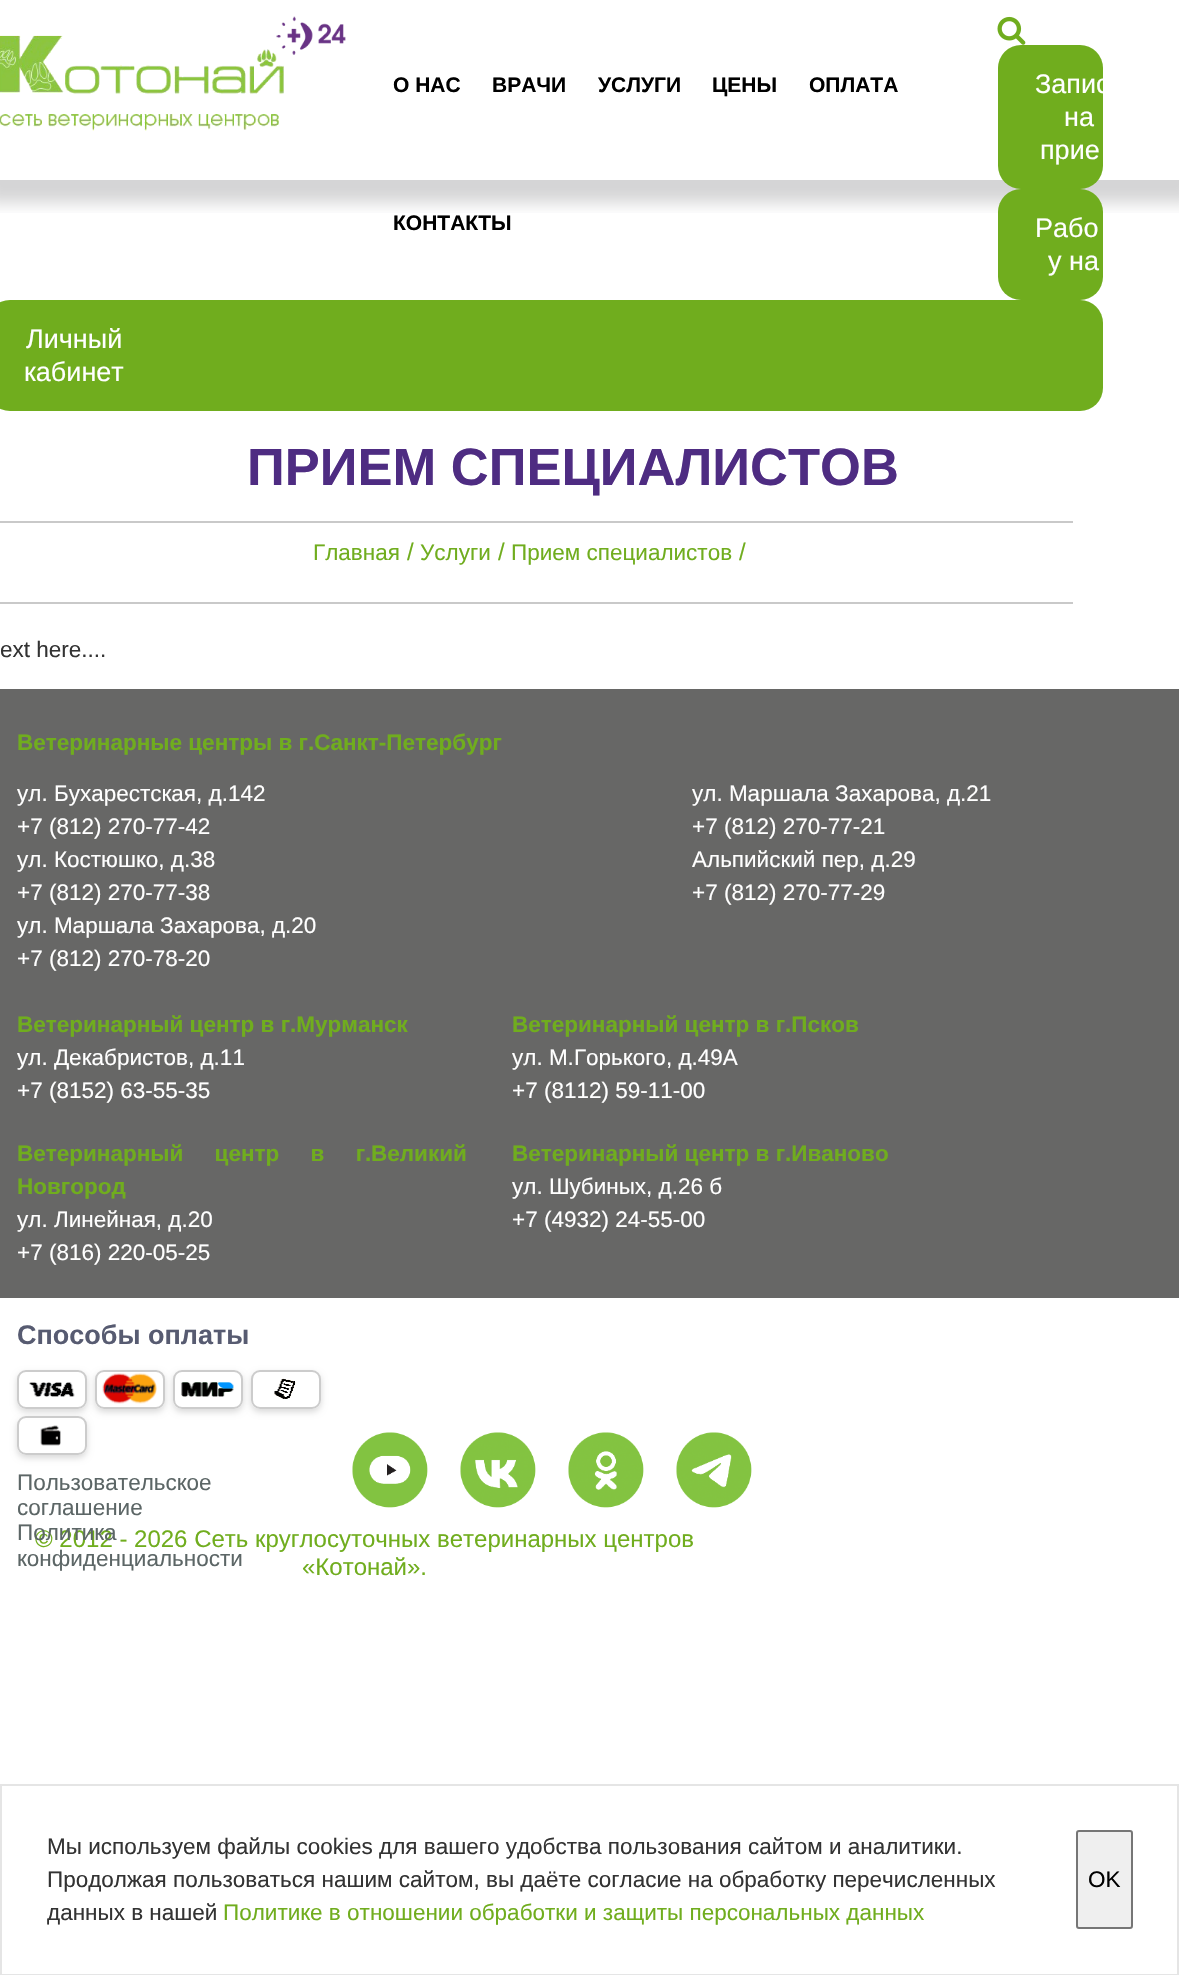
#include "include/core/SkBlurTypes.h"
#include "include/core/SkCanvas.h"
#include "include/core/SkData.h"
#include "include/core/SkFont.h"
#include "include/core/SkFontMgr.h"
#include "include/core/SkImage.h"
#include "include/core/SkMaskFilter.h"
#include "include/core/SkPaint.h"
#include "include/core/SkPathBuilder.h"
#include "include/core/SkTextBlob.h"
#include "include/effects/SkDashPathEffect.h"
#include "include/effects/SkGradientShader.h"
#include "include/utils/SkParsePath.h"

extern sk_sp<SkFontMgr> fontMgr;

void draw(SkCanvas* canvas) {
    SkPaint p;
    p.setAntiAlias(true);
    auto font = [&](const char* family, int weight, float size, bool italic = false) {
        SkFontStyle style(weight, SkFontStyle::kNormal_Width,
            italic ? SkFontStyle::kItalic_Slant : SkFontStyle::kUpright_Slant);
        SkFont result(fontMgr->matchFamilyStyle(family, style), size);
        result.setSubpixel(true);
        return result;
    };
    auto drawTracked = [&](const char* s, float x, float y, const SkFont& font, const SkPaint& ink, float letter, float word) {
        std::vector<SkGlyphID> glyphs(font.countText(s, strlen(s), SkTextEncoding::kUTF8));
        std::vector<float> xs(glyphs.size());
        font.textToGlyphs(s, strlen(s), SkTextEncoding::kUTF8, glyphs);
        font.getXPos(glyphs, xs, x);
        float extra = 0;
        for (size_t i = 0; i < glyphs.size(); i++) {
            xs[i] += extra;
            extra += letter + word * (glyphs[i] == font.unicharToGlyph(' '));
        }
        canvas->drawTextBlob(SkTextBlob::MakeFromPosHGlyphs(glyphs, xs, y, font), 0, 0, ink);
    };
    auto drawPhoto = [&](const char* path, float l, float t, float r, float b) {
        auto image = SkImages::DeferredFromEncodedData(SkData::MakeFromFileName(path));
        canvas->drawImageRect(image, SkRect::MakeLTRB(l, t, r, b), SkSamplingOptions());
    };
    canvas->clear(0xFFFFFFFF);
    canvas->save();
    canvas->clipRect(SkRect::MakeLTRB(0, 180, 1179, 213));
    p.setColor(0x332B2F32);
    p.setMaskFilter(SkMaskFilter::MakeBlur(kNormal_SkBlurStyle, 7.5f));
    canvas->drawRect(SkRect::MakeLTRB(-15, -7, 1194, 203), p);
    p.setMaskFilter(nullptr);
    canvas->restore();
    drawPhoto("media/1.png", 0, 16, 346, 131);
    drawPhoto("media/2.png", 997, 16, 1026, 45);
    auto font1 = font("Liberation Sans", 700, 21);
    p.setColor(0xFF000000);
    {
        const struct { const char* s; float x, y; } items[] = {
            {"О НАС", 393, 92},
            {"ВРАЧИ", 492, 92},
            {"УСЛУГИ", 598, 92},
            {"ЦЕНЫ", 712, 92},
            {"ОПЛАТА", 809, 92},
            {"КОНТАКТЫ", 393, 230},
        };
        for (auto [s, x, y] : items) {
            canvas->drawString(s, x, y, font1, p);
        }
    }
    p.setColor(0xFF70AD1E);
    canvas->drawRoundRect(SkRect::MakeLTRB(998, 45, 1103, 189), 23, 23, p);
    auto font2 = font("Liberation Sans", 400, 27);
    p.setColor(0xFFFFFFFF);
    {
        const struct { const char* s; float x, y; } items[] = {
            {"Запис", 1035, 93},
            {"на", 1064, 126},
            {"прие", 1040, 159},
        };
        for (auto [s, x, y] : items) {
            canvas->drawString(s, x, y, font2, p);
        }
    }
    p.setColor(0xFF70AD1E);
    canvas->drawRoundRect(SkRect::MakeLTRB(998, 189, 1103, 300), 23, 23, p);
    p.setColor(0xFFFFFFFF);
    canvas->drawString("Рабо", 1035, 237, font2, p);
    canvas->drawString("у на", 1048, 270, font2, p);
    p.setColor(0xFF70AD1E);
    canvas->drawRoundRect(SkRect::MakeLTRB(-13, 300, 1103, 411), 23, 23, p);
    p.setColor(0xFFFFFFFF);
    canvas->drawString("Личный", 26, 348, font2, p);
    canvas->drawString("кабинет", 24, 381, font2, p);
    auto font3 = font("Liberation Sans", 700, 52.5f);
    p.setColor(0xFF4E2C82);
    canvas->drawString("ПРИЕМ СПЕЦИАЛИСТОВ", 247, 485, font3, p);
    p.setColor(0xFFC9C9C9);
    canvas->drawRect(SkRect::MakeLTRB(0, 521, 1073, 523), p);
    canvas->drawRect(SkRect::MakeLTRB(0, 602, 1073, 604), p);
    auto font4 = font("Liberation Sans", 400, 22.5f);
    p.setColor(0xFF70AD1E);
    canvas->drawString("Главная", 313, 560, font4, p);
    auto font5 = font("Liberation Sans", 400, 24);
    canvas->drawString("/", 407, 560, font5, p);
    canvas->drawString("Услуги", 420, 560, font4, p);
    canvas->drawString("/", 498, 560, font5, p);
    canvas->drawString("Прием специалистов", 511, 560, font4, p);
    canvas->drawString("/", 739, 560, font5, p);
    p.setColor(0xFF333333);
    canvas->drawString("ext here....", 0, 657, font4, p);
    p.setColor(0xFF676766);
    canvas->drawRect(SkRect::MakeLTRB(0, 689, 17, 1298), p);
    canvas->drawRect(SkRect::MakeLTRB(17, 689, 1179, 1298), p);
    auto font6 = font("Liberation Sans", 700, 22.5f);
    p.setColor(0xFF70AD1E);
    canvas->drawString("Ветеринарные центры в г.Санкт-Петербург", 17, 750, font6, p);
    p.setColor(0xFFFFFFFF);
    {
        const struct { const char* s; float x, y; } items[] = {
            {"ул. Бухарестская, д.142", 17, 801},
            {"+7 (812) 270-77-42", 17, 834},
            {"ул. Костюшко, д.38", 17, 867},
            {"+7 (812) 270-77-38", 17, 900},
            {"ул. Маршала Захарова, д.20", 17, 933},
            {"+7 (812) 270-78-20", 17, 966},
            {"ул. Маршала Захарова, д.21", 692, 801},
            {"+7 (812) 270-77-21", 692, 834},
            {"Альпийский пер, д.29", 692, 867},
            {"+7 (812) 270-77-29", 692, 900},
        };
        for (auto [s, x, y] : items) {
            canvas->drawString(s, x, y, font4, p);
        }
    }
    p.setColor(0xFF70AD1E);
    canvas->drawString("Ветеринарный центр в г.Мурманск", 17, 1032, font6, p);
    p.setColor(0xFFFFFFFF);
    canvas->drawString("ул. Декабристов, д.11", 17, 1065, font4, p);
    canvas->drawString("+7 (8152) 63-55-35", 17, 1098, font4, p);
    p.setColor(0xFF70AD1E);
    drawTracked("Ветеринарный центр в г.", 17, 1161, font6, p, 0, 25);
    canvas->drawString("Великий", 371, 1161, font6, p);
    canvas->drawString("Новгород", 17, 1194, font6, p);
    p.setColor(0xFFFFFFFF);
    canvas->drawString("ул. Линейная, д.20", 17, 1227, font4, p);
    canvas->drawString("+7 (816) 220-05-25", 17, 1260, font4, p);
    p.setColor(0xFF70AD1E);
    canvas->drawString("Ветеринарный центр в г.Псков", 512, 1032, font6, p);
    p.setColor(0xFFFFFFFF);
    canvas->drawString("ул. М.Горького, д.49А", 512, 1065, font4, p);
    canvas->drawString("+7 (8112) 59-11-00", 512, 1098, font4, p);
    p.setColor(0xFF70AD1E);
    canvas->drawString("Ветеринарный центр в г.Иваново", 512, 1161, font6, p);
    p.setColor(0xFFFFFFFF);
    canvas->drawString("ул. Шубиных, д.26 б", 512, 1194, font4, p);
    canvas->drawString("+7 (4932) 24-55-00", 512, 1227, font4, p);
    auto font7 = font("Liberation Sans", 700, 27);
    p.setColor(0xFF575B71);
    canvas->drawString("Способы оплаты", 17, 1344, font7, p);
    canvas->save();
    canvas->clipPath(SkPathBuilder(SkPathFillType::kEvenOdd).moveTo(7, 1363).lineTo(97, 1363).lineTo(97, 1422).lineTo(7, 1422).close().moveTo(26, 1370).lineTo(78, 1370).cubicTo(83, 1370, 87, 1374, 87, 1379).lineTo(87, 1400).cubicTo(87, 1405, 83, 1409, 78, 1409).lineTo(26, 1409).cubicTo(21, 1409, 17, 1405, 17, 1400).lineTo(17, 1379).cubicTo(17, 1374, 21, 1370, 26, 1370).close().detach(), true);
    p.setColor(0x26000000);
    p.setMaskFilter(SkMaskFilter::MakeBlur(kNormal_SkBlurStyle, 3));
    canvas->drawRoundRect(SkRect::MakeLTRB(17, 1373, 87, 1412), 9, 9, p);
    p.setMaskFilter(nullptr);
    canvas->restore();
    p.setStyle(SkPaint::kStroke_Style);
    p.setStrokeWidth(2);
    p.setColor(0xFFCCCCCC);
    canvas->drawRoundRect(SkRect::MakeLTRB(18, 1371, 86, 1408), 8, 8, p);
    drawPhoto("media/3.png", 29, 1382, 75, 1397);
    canvas->save();
    canvas->clipPath(SkPathBuilder(SkPathFillType::kEvenOdd).moveTo(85, 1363).lineTo(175, 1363).lineTo(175, 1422).lineTo(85, 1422).close().moveTo(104, 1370).lineTo(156, 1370).cubicTo(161, 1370, 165, 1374, 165, 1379).lineTo(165, 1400).cubicTo(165, 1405, 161, 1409, 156, 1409).lineTo(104, 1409).cubicTo(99, 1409, 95, 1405, 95, 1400).lineTo(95, 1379).cubicTo(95, 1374, 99, 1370, 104, 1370).close().detach(), true);
    p.setStyle(SkPaint::kFill_Style);
    p.setColor(0x26000000);
    p.setMaskFilter(SkMaskFilter::MakeBlur(kNormal_SkBlurStyle, 3));
    canvas->drawRoundRect(SkRect::MakeLTRB(95, 1373, 165, 1412), 9, 9, p);
    p.setMaskFilter(nullptr);
    canvas->restore();
    p.setStyle(SkPaint::kStroke_Style);
    p.setColor(0xFFCCCCCC);
    canvas->drawRoundRect(SkRect::MakeLTRB(96, 1371, 164, 1408), 8, 8, p);
    drawPhoto("media/4.png", 102, 1373, 157, 1404);
    canvas->save();
    canvas->clipPath(SkPathBuilder(SkPathFillType::kEvenOdd).moveTo(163, 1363).lineTo(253, 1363).lineTo(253, 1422).lineTo(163, 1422).close().moveTo(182, 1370).lineTo(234, 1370).cubicTo(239, 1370, 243, 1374, 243, 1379).lineTo(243, 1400).cubicTo(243, 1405, 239, 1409, 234, 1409).lineTo(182, 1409).cubicTo(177, 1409, 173, 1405, 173, 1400).lineTo(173, 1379).cubicTo(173, 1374, 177, 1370, 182, 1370).close().detach(), true);
    p.setStyle(SkPaint::kFill_Style);
    p.setColor(0x26000000);
    p.setMaskFilter(SkMaskFilter::MakeBlur(kNormal_SkBlurStyle, 3));
    canvas->drawRoundRect(SkRect::MakeLTRB(173, 1373, 243, 1412), 9, 9, p);
    p.setMaskFilter(nullptr);
    canvas->restore();
    p.setStyle(SkPaint::kStroke_Style);
    p.setColor(0xFFCCCCCC);
    canvas->drawRoundRect(SkRect::MakeLTRB(174, 1371, 242, 1408), 8, 8, p);
    drawPhoto("media/5.png", 181, 1382, 234, 1397);
    canvas->save();
    canvas->clipPath(SkPathBuilder(SkPathFillType::kEvenOdd).moveTo(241, 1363).lineTo(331, 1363).lineTo(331, 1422).lineTo(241, 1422).close().moveTo(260, 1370).lineTo(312, 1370).cubicTo(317, 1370, 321, 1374, 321, 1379).lineTo(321, 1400).cubicTo(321, 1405, 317, 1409, 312, 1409).lineTo(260, 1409).cubicTo(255, 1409, 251, 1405, 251, 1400).lineTo(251, 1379).cubicTo(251, 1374, 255, 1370, 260, 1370).close().detach(), true);
    p.setStyle(SkPaint::kFill_Style);
    p.setColor(0x26000000);
    p.setMaskFilter(SkMaskFilter::MakeBlur(kNormal_SkBlurStyle, 3));
    canvas->drawRoundRect(SkRect::MakeLTRB(251, 1373, 321, 1412), 9, 9, p);
    p.setMaskFilter(nullptr);
    canvas->restore();
    p.setStyle(SkPaint::kStroke_Style);
    p.setColor(0xFFCCCCCC);
    canvas->drawRoundRect(SkRect::MakeLTRB(252, 1371, 320, 1408), 8, 8, p);
    drawPhoto("media/6.png", 274, 1378, 296, 1399);
    canvas->save();
    canvas->clipPath(SkPathBuilder(SkPathFillType::kEvenOdd).moveTo(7, 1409).lineTo(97, 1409).lineTo(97, 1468).lineTo(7, 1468).close().moveTo(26, 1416).lineTo(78, 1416).cubicTo(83, 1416, 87, 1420, 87, 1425).lineTo(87, 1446).cubicTo(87, 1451, 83, 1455, 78, 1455).lineTo(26, 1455).cubicTo(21, 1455, 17, 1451, 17, 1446).lineTo(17, 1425).cubicTo(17, 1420, 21, 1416, 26, 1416).close().detach(), true);
    p.setStyle(SkPaint::kFill_Style);
    p.setColor(0x26000000);
    p.setMaskFilter(SkMaskFilter::MakeBlur(kNormal_SkBlurStyle, 3));
    canvas->drawRoundRect(SkRect::MakeLTRB(17, 1419, 87, 1458), 9, 9, p);
    p.setMaskFilter(nullptr);
    canvas->restore();
    p.setStyle(SkPaint::kStroke_Style);
    p.setColor(0xFFCCCCCC);
    canvas->drawRoundRect(SkRect::MakeLTRB(18, 1417, 86, 1454), 8, 8, p);
    drawPhoto("media/7.png", 40, 1425, 61, 1446);
    p.setStyle(SkPaint::kFill_Style);
    p.setColor(0xFF5C6666);
    canvas->drawString("Пользовательское", 17, 1490, font4, p);
    canvas->drawString("соглашение", 17, 1515, font4, p);
    p.setColor(0xFF70AD1E);
    canvas->drawString("© 2012 - 2026 Сеть круглосуточных ветеринарных центров", 35, 1547, font5, p);
    p.setColor(0xFF5C6666);
    canvas->drawString("Политика", 17, 1540, font4, p);
    canvas->drawString("конфиденциальности", 17, 1566, font4, p);
    drawPhoto("media/8.png", 352, 1432, 428, 1508);
    drawPhoto("media/9.png", 460, 1432, 536, 1508);
    drawPhoto("media/10.png", 568, 1432, 644, 1508);
    drawPhoto("media/11.png", 676, 1432, 752, 1508);
    p.setColor(0xFF70AD1E);
    canvas->drawString("«Котонай».", 302, 1575, font5, p);
    p.setStyle(SkPaint::kStroke_Style);
    p.setColor(0xFFE5E5E5);
    canvas->drawRect(SkRect::MakeLTRB(1, 1785, 1178, 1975), p);
    p.setStyle(SkPaint::kFill_Style);
    p.setColor(0xFF333333);
    {
        const struct { const char* s; float x, y; } items[] = {
            {"Мы используем файлы cookies для вашего удобства пользования сайтом и аналитики.", 47, 1854},
            {"Продолжая пользоваться нашим сайтом, вы даёте согласие на обработку перечисленных", 47, 1887},
            {"данных в нашей", 47, 1920},
        };
        for (auto [s, x, y] : items) {
            canvas->drawString(s, x, y, font4, p);
        }
    }
    p.setColor(0xFF70AD1E);
    canvas->drawString("Политике в отношении обработки и защиты персональных данных", 223, 1920, font4, p);
    p.setColor(0xFFEFEFEF);
    canvas->drawRoundRect(SkRect::MakeLTRB(1077, 1831, 1132, 1928), 2, 2, p);
    p.setStyle(SkPaint::kStroke_Style);
    p.setColor(0xFF767676);
    canvas->drawRoundRect(SkRect::MakeLTRB(1077, 1831, 1132, 1928), 2, 2, p);
    p.setStyle(SkPaint::kFill_Style);
    p.setColor(0xFF000000);
    canvas->drawString("OK", 1088, 1887, font4, p);
}
